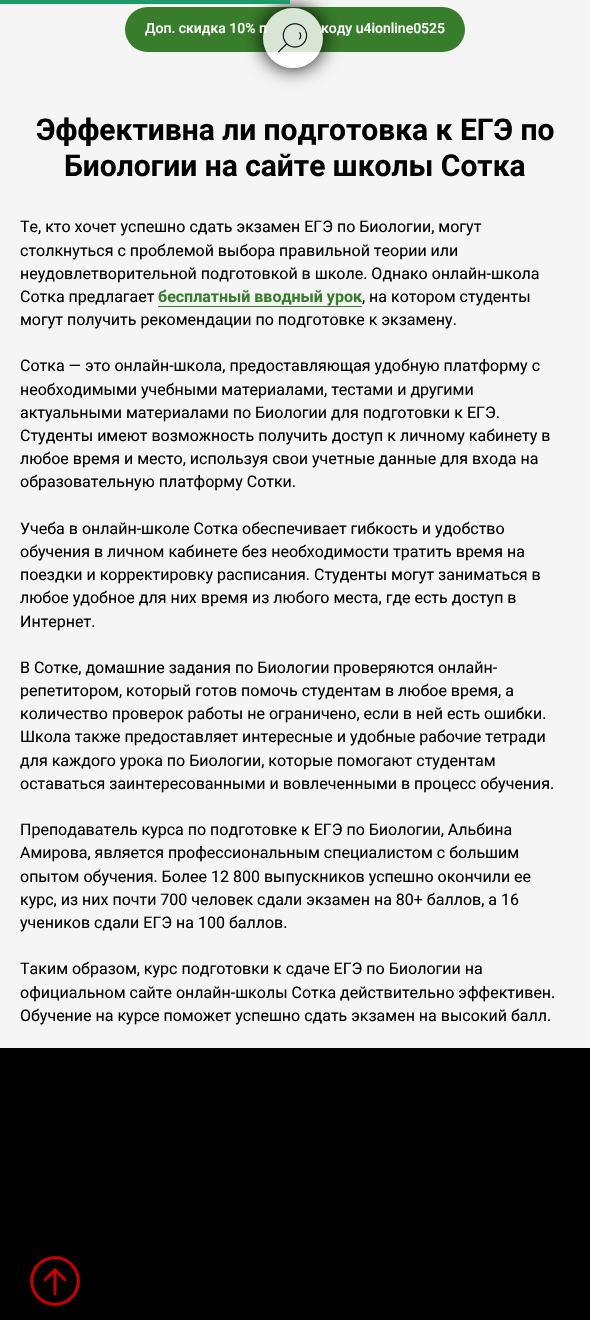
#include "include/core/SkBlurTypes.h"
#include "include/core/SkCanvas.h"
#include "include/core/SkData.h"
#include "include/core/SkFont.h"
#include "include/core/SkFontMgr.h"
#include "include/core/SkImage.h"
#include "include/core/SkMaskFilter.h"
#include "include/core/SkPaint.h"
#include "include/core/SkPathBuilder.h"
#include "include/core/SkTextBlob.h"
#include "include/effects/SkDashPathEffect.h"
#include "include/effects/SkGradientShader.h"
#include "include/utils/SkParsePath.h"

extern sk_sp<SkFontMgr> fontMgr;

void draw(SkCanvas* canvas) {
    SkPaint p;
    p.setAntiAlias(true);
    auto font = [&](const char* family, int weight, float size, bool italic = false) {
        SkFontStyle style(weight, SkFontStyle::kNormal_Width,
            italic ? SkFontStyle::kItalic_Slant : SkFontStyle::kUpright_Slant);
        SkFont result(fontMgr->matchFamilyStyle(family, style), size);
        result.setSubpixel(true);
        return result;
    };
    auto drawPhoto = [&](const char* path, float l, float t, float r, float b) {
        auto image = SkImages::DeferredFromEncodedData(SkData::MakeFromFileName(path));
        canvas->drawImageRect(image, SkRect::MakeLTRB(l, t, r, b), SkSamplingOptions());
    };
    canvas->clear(0xFFF5F5F5);
    p.setColor(0xFF387D2C);
    canvas->drawRoundRect(SkRect::MakeLTRB(125, 7, 465, 52), 22.5f, 22.5f, p);
    canvas->save();
    canvas->clipPath(SkPathBuilder(SkPathFillType::kEvenOdd).moveTo(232, 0).lineTo(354, 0).lineTo(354, 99).lineTo(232, 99).close().moveTo(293, 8).cubicTo(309.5f, 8, 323, 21.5f, 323, 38).cubicTo(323, 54.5f, 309.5f, 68, 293, 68).cubicTo(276.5f, 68, 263, 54.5f, 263, 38).cubicTo(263, 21.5f, 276.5f, 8, 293, 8).close().detach(), true);
    p.setColor(0xFF000000);
    p.setMaskFilter(SkMaskFilter::MakeBlur(kNormal_SkBlurStyle, 10));
    canvas->drawRoundRect(SkRect::MakeLTRB(263, 8, 323, 68), 30, 30, p);
    p.setMaskFilter(nullptr);
    canvas->restore();
    p.setColor(0xFF199C68);
    canvas->drawRect(SkRect::MakeLTRB(0, 0, 290, 4), p);
    auto font1 = font("Roboto", 500, 14);
    p.setColor(0xFFFFFFFF);
    canvas->drawString("Доп. скидка 10% п", 145, 33, font1, p);
    canvas->drawString("коду u4ionline0525", 321, 33, font1, p);
    p.setColor(0xCCFFFFFF);
    canvas->drawCircle(293, 38, 30, p);
    drawPhoto("media/1.png", 278, 23, 308, 53);
    auto font2 = font("Roboto", 700, 30);
    p.setColor(0xFF000000);
    canvas->drawString("Эффективна ли подготовка к ЕГЭ по", 36, 140, font2, p);
    canvas->drawString("Биологии на сайте школы Сотка", 64, 176, font2, p);
    auto font3 = font("Roboto", 400, 16);
    {
        const struct { const char* s; float x, y; } items[] = {
            {"Те, кто хочет успешно сдать экзамен ЕГЭ по Биологии, могут", 20, 232},
            {"столкнуться с проблемой выбора правильной теории или", 20, 256},
            {"неудовлетворительной подготовкой в школе. Однако онлайн-школа", 20, 279},
            {"Сотка предлагает", 20, 302},
        };
        for (auto [s, x, y] : items) {
            canvas->drawString(s, x, y, font3, p);
        }
    }
    auto font4 = font("Roboto", 700, 16);
    p.setColor(0xFF387D2C);
    canvas->drawString("бесплатный вводный урок", 158, 302, font4, p);
    canvas->drawRect(SkRect::MakeLTRB(158, 306, 362, 307), p);
    p.setColor(0xFF000000);
    {
        const struct { const char* s; float x, y; } items[] = {
            {", на котором студенты", 362, 302},
            {"могут получить рекомендации по подготовке к экзамену.", 20, 325},
            {"Сотка — это онлайн-школа, предоставляющая удобную платформу с", 20, 371},
            {"необходимыми учебными материалами, тестами и другими", 20, 395},
            {"актуальными материалами по Биологии для подготовки к ЕГЭ.", 20, 418},
            {"Студенты имеют возможность получить доступ к личному кабинету в", 20, 441},
            {"любое время и место, используя свои учетные данные для входа на", 20, 464},
            {"образовательную платформу Сотки.", 20, 487},
            {"Учеба в онлайн-школе Сотка обеспечивает гибкость и удобство", 20, 534},
            {"обучения в личном кабинете без необходимости тратить время на", 20, 557},
            {"поездки и корректировку расписания. Студенты могут заниматься в", 20, 580},
            {"любое удобное для них время из любого места, где есть доступ в", 20, 603},
            {"Интернет.", 20, 627},
            {"В Сотке, домашние задания по Биологии проверяются онлайн-", 20, 673},
            {"репетитором, который готов помочь студентам в любое время, а", 20, 696},
            {"количество проверок работы не ограничено, если в ней есть ошибки.", 20, 719},
            {"Школа также предоставляет интересные и удобные рабочие тетради", 20, 742},
            {"для каждого урока по Биологии, которые помогают студентам", 20, 766},
            {"оставаться заинтересованными и вовлеченными в процесс обучения.", 20, 789},
            {"Преподаватель курса по подготовке к ЕГЭ по Биологии, Альбина", 20, 835},
            {"Амирова, является профессиональным специалистом с большим", 20, 858},
            {"опытом обучения. Более 12 800 выпускников успешно окончили ее", 20, 882},
            {"курс, из них почти 700 человек сдали экзамен на 80+ баллов, а 16", 20, 905},
            {"учеников сдали ЕГЭ на 100 баллов.", 20, 928},
            {"Таким образом, курс подготовки к сдаче ЕГЭ по Биологии на", 20, 974},
            {"официальном сайте онлайн-школы Сотка действительно эффективен.", 20, 998},
            {"Обучение на курсе поможет успешно сдать экзамен на высокий балл.", 20, 1021},
        };
        for (auto [s, x, y] : items) {
            canvas->drawString(s, x, y, font3, p);
        }
    }
    canvas->drawRect(SkRect::MakeLTRB(0, 1048, 590, 1320), p);
    drawPhoto("media/2.png", 30, 1256, 80, 1306);
}
